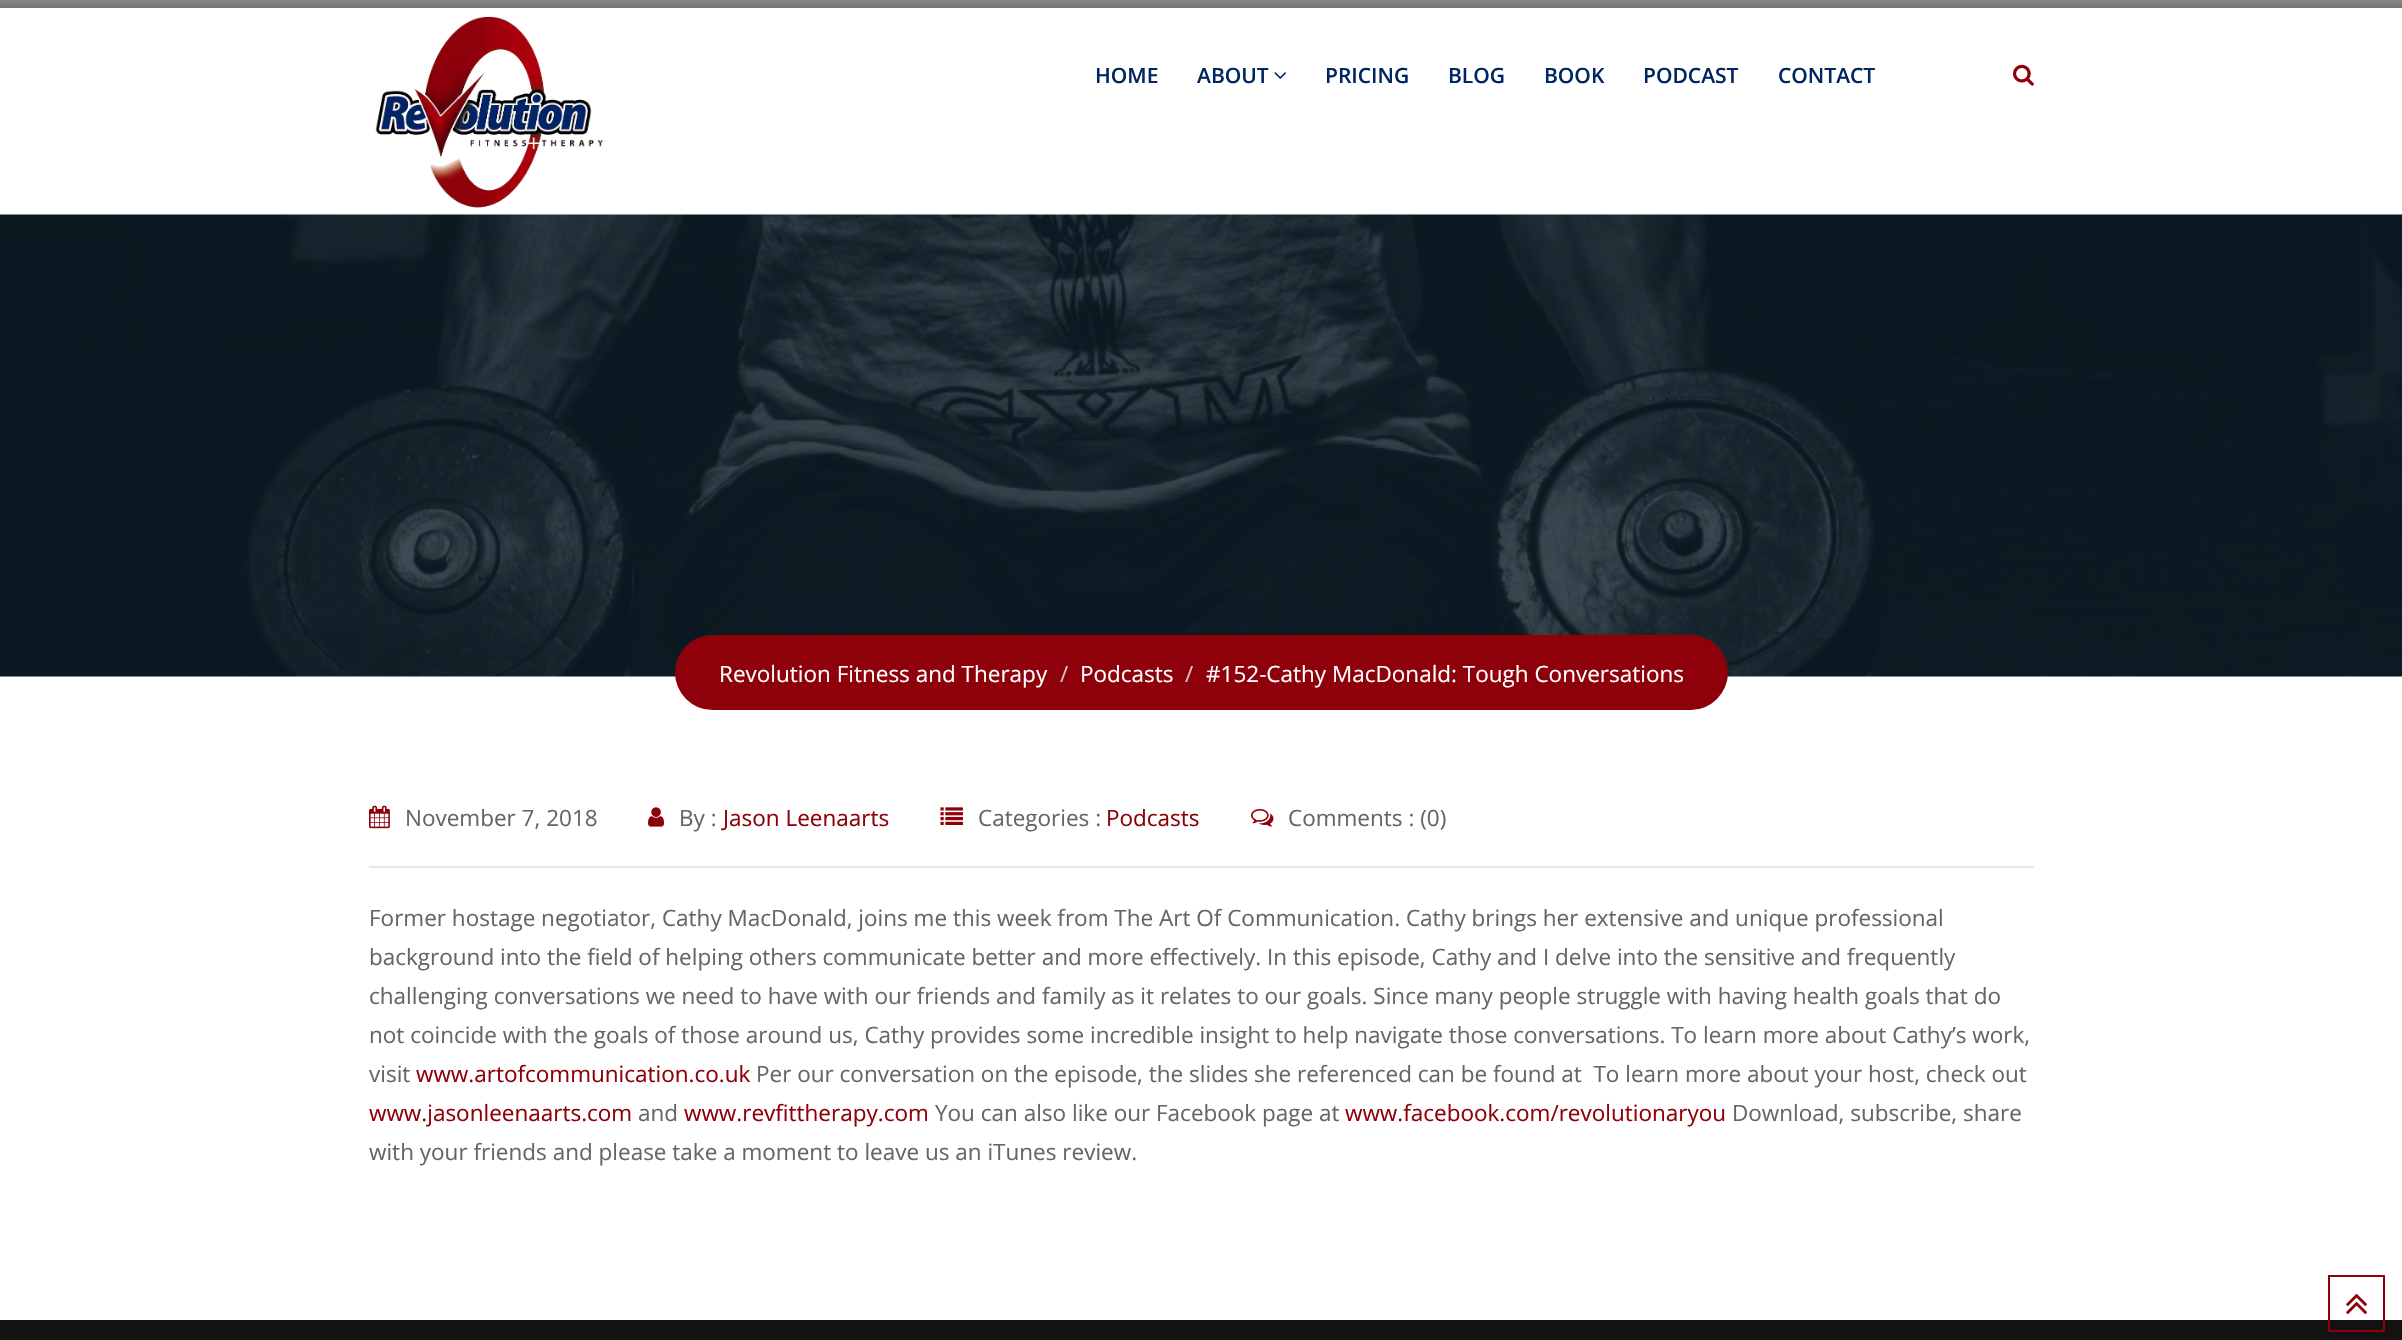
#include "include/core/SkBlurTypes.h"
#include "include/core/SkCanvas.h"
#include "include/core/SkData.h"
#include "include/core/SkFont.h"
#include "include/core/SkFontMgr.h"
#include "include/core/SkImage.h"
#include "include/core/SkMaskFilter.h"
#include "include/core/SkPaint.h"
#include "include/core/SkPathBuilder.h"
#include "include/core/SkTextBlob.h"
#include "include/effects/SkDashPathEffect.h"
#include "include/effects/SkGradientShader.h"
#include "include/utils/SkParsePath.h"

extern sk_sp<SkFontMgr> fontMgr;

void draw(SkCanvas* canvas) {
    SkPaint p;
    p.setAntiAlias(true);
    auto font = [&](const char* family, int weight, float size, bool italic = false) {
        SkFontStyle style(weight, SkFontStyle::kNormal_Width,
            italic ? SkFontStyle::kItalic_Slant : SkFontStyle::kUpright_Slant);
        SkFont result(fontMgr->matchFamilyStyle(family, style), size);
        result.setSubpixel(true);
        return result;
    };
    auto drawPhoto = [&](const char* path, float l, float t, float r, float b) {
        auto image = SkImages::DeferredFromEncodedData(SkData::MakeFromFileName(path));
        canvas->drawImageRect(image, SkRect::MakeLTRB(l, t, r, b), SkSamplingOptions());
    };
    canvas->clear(0xFFFFFFFF);
    {
        const SkColor colors[] = {0xFF888888, 0xFF000000};
        const float stops[] = {0, 1};
        const SkPoint ends[] = {{1202, 0}, {1202, 53}};
        p.setShader(SkGradientShader::MakeLinear(ends, colors, stops, 2, SkTileMode::kClamp));
        p.setAlpha(255);
    }
    canvas->drawRect(SkRect::MakeLTRB(0, 0, 2402, 8), p);
    drawPhoto("media/1.png", 375, 16, 603, 208);
    auto font1 = font("Open Sans", 600, 21);
    p.setShader(nullptr);
    p.setColor(0xFF002563);
    canvas->drawString("HOME", 1095, 83, font1, p);
    canvas->drawString("ABOUT", 1197, 83, font1, p);
    drawPhoto("media/2.png", 1274, 72, 1286, 79);
    {
        const struct { const char* s; float x, y; } items[] = {
            {"PRICING", 1325, 83},
            {"BLOG", 1448, 83},
            {"BOOK", 1544, 83},
            {"PODCAST", 1643, 83},
            {"CONTACT", 1778, 83},
        };
        for (auto [s, x, y] : items) {
            canvas->drawString(s, x, y, font1, p);
        }
    }
    drawPhoto("media/3.png", 2013, 64, 2034, 86);
    drawPhoto("media/4.png", 0, 214, 2402, 677);
    p.setColor(0xFF8E010A);
    canvas->drawRoundRect(SkRect::MakeLTRB(675, 635, 1728, 710), 37.5f, 37.5f, p);
    auto font2 = font("Open Sans", 400, 22.5f);
    p.setColor(0xFFFFFFFF);
    canvas->drawString("Revolution Fitness and Therapy", 719, 682, font2, p);
    p.setColor(0xFFCCCCCC);
    canvas->drawString("/", 1060, 682, font2, p);
    p.setColor(0xFFFFFFFF);
    canvas->drawString("Podcasts", 1080, 682, font2, p);
    p.setColor(0xFFCCCCCC);
    canvas->drawString("/", 1185, 682, font2, p);
    p.setColor(0xFFFFFFFF);
    canvas->drawString("#152-Cathy MacDonald: Tough Conversations", 1206, 682, font2, p);
    p.setColor(0xFFE7E7E7);
    canvas->drawRect(SkRect::MakeLTRB(369, 866, 2034, 868), p);
    drawPhoto("media/5.png", 369, 805, 390, 829);
    p.setColor(0xFF666666);
    canvas->drawString("November 7, 2018", 405, 826, font2, p);
    drawPhoto("media/6.png", 648, 807, 665, 827);
    canvas->drawString("By :", 679, 826, font2, p);
    p.setColor(0xFF8E010A);
    canvas->drawString("Jason Leenaarts", 723, 826, font2, p);
    drawPhoto("media/7.png", 940, 807, 963, 825);
    p.setColor(0xFF666666);
    canvas->drawString("Categories :", 978, 826, font2, p);
    p.setColor(0xFF8E010A);
    canvas->drawString("Podcasts", 1106, 826, font2, p);
    drawPhoto("media/8.png", 1251, 808, 1274, 827);
    p.setColor(0xFF666666);
    {
        const struct { const char* s; float x, y; } items[] = {
            {"Comments : (0)", 1288, 826},
            {"Former hostage negotiator, Cathy MacDonald, joins me this week from The Art Of Communication. Cathy brings her extensive and unique professional", 369, 926},
            {"background into the field of helping others communicate better and more effectively. In this episode, Cathy and I delve into the sensitive and frequently", 369, 965},
            {"challenging conversations we need to have with our friends and family as it relates to our goals. Since many people struggle with having health goals that do", 369, 1004},
            {"not coincide with the goals of those around us, Cathy provides some incredible insight to help navigate those conversations. To learn more about Cathy’s work,", 369, 1043},
            {"visit", 369, 1082},
        };
        for (auto [s, x, y] : items) {
            canvas->drawString(s, x, y, font2, p);
        }
    }
    p.setColor(0xFF8E010A);
    canvas->drawString("www.artofcommunication.co.uk", 416, 1082, font2, p);
    p.setColor(0xFF666666);
    canvas->drawString("Per our conversation on the episode, the slides she referenced can be found at  To learn more about your host, check out", 756, 1082, font2, p);
    p.setColor(0xFF8E010A);
    canvas->drawString("www.jasonleenaarts.com", 369, 1121, font2, p);
    p.setColor(0xFF666666);
    canvas->drawString("and", 638, 1121, font2, p);
    p.setColor(0xFF8E010A);
    canvas->drawString("www.revfittherapy.com", 684, 1121, font2, p);
    p.setColor(0xFF666666);
    canvas->drawString("You can also like our Facebook page at", 935, 1121, font2, p);
    p.setColor(0xFF8E010A);
    canvas->drawString("www.facebook.com/revolutionaryou", 1345, 1121, font2, p);
    p.setColor(0xFF666666);
    canvas->drawString("Download, subscribe, share", 1732, 1121, font2, p);
    canvas->drawString("with your friends and please take a moment to leave us an iTunes review.", 369, 1160, font2, p);
    p.setColor(0xFF121212);
    canvas->drawRect(SkRect::MakeLTRB(0, 1320, 2402, 1340), p);
    p.setStyle(SkPaint::kStroke_Style);
    p.setStrokeWidth(2);
    p.setColor(0xFF8E010A);
    canvas->drawRect(SkRect::MakeLTRB(2329, 1276, 2384, 1331), p);
    drawPhoto("media/9.png", 2346, 1293, 2367, 1314);
}
